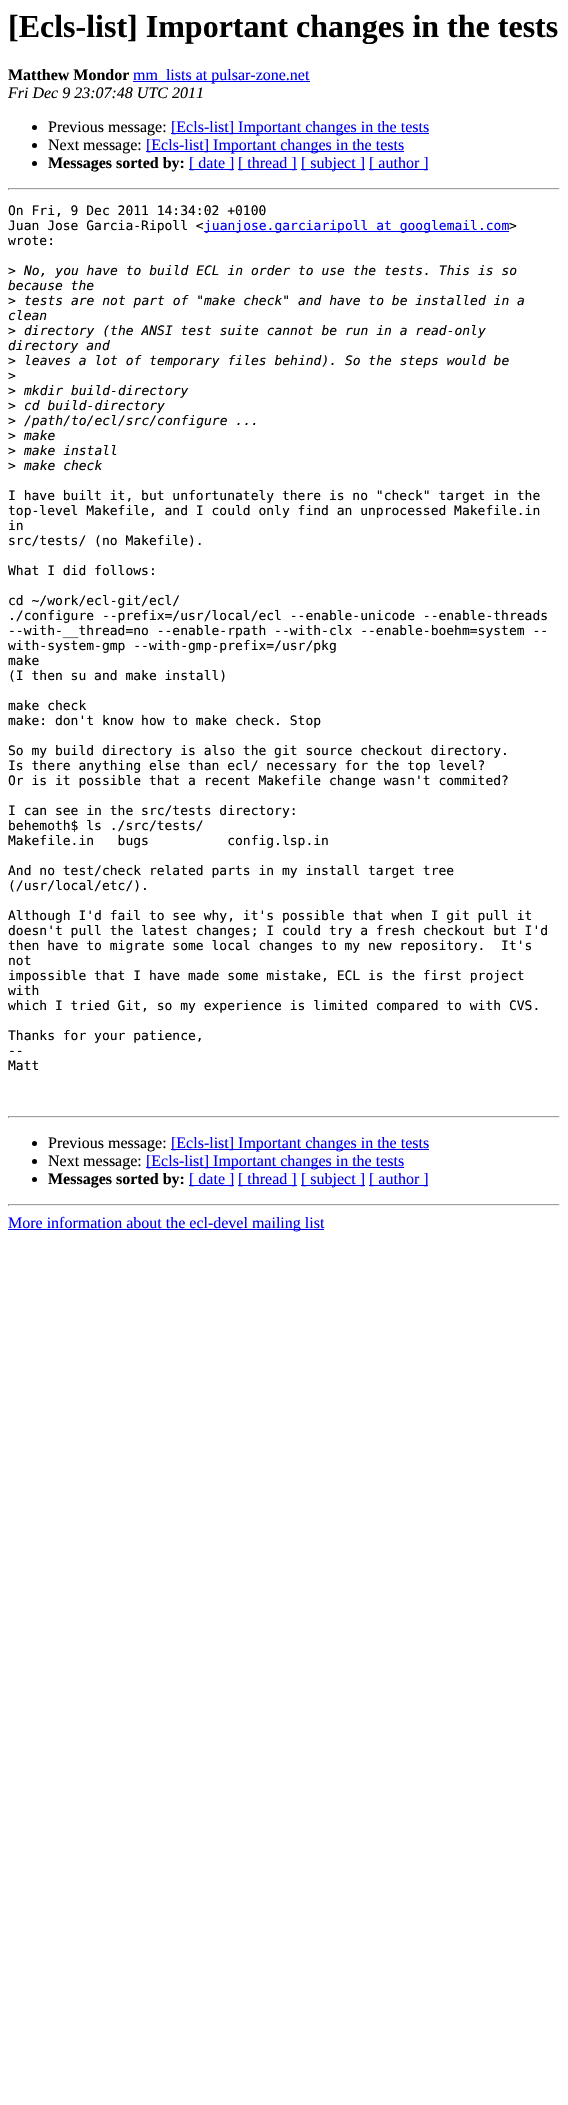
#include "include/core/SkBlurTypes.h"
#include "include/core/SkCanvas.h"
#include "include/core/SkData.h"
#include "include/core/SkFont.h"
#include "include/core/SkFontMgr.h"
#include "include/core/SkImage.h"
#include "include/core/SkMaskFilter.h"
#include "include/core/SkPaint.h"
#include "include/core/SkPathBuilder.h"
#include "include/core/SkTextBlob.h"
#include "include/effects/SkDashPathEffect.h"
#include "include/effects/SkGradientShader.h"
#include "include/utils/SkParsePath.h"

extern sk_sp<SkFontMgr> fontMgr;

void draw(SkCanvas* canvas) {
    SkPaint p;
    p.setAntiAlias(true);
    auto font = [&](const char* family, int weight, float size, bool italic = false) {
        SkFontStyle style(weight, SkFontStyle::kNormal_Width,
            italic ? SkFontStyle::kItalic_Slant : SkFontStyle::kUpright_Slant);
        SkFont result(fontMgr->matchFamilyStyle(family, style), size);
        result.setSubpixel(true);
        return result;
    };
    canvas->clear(0xFFFFFFFF);
    auto font1 = font("Liberation Serif", 700, 32);
    p.setColor(0xFF000000);
    canvas->drawString("[Ecls-list] Important changes in the tests", 8, 37, font1, p);
    auto font2 = font("Liberation Serif", 700, 16);
    canvas->drawString("Matthew Mondor", 8, 80, font2, p);
    p.setColor(0xFF0000EE);
    canvas->drawRect(SkRect::MakeLTRB(133, 81, 310, 82), p);
    auto font3 = font("Liberation Serif", 400, 16);
    canvas->drawString("mm_lists at pulsar-zone.net", 133, 80, font3, p);
    auto font4 = font("Liberation Serif", 400, 16, true);
    p.setColor(0xFF000000);
    canvas->drawString("Fri Dec 9 23:07:48 UTC 2011", 8, 98, font4, p);
    canvas->drawCircle(34.5f, 127.5f, 2.5f, p);
    canvas->drawString("Previous message:", 48, 132, font3, p);
    p.setColor(0xFF0000EE);
    canvas->drawRect(SkRect::MakeLTRB(171, 133, 429, 134), p);
    canvas->drawString("[Ecls-list] Important changes in the tests", 171, 132, font3, p);
    p.setColor(0xFF000000);
    canvas->drawCircle(34.5f, 145.5f, 2.5f, p);
    canvas->drawString("Next message:", 48, 150, font3, p);
    p.setColor(0xFF0000EE);
    canvas->drawRect(SkRect::MakeLTRB(146, 151, 404, 152), p);
    canvas->drawString("[Ecls-list] Important changes in the tests", 146, 150, font3, p);
    p.setColor(0xFF000000);
    canvas->drawCircle(34.5f, 163.5f, 2.5f, p);
    canvas->drawString("Messages sorted by:", 48, 168, font2, p);
    p.setColor(0xFF0000EE);
    canvas->drawRect(SkRect::MakeLTRB(189, 169, 234, 170), p);
    canvas->drawString("[ date ]", 189, 168, font3, p);
    canvas->drawRect(SkRect::MakeLTRB(238, 169, 297, 170), p);
    canvas->drawString("[ thread ]", 238, 168, font3, p);
    canvas->drawRect(SkRect::MakeLTRB(301, 169, 365, 170), p);
    canvas->drawString("[ subject ]", 301, 168, font3, p);
    canvas->drawRect(SkRect::MakeLTRB(369, 169, 428, 170), p);
    canvas->drawString("[ author ]", 369, 168, font3, p);
    {
        const struct { float l, t, r, b; SkColor color; } items[] = {
            {8, 188, 560, 189, 0xFF9F9F9F},
            {559, 188, 560, 190, 0xFFEEEEEE},
            {8, 189, 560, 190, 0xFFEEEEEE},
            {8, 188, 9, 190, 0xFF9F9F9F},
        };
        for (auto [l, t, r, b, color] : items) {
            p.setColor(color);
            canvas->drawRect(SkRect::MakeLTRB(l, t, r, b), p);
        }
    }
    auto font5 = font("DejaVu Sans Mono", 400, 13);
    p.setColor(0xFF000000);
    canvas->drawString("On Fri, 9 Dec 2011 14:34:02 +0100", 8, 215, font5, p);
    canvas->drawString("Juan Jose Garcia-Ripoll <", 8, 230, font5, p);
    p.setColor(0xFF0000EE);
    canvas->drawRect(SkRect::MakeLTRB(204, 231, 509, 232), p);
    canvas->drawString("juanjose.garciaripoll at googlemail.com", 204, 230, font5, p);
    p.setColor(0xFF000000);
    {
        const struct { const char* s; float x, y; } items[] = {
            {">", 509, 230},
            {"wrote:", 8, 245},
            {">", 8, 275},
        };
        for (auto [s, x, y] : items) {
            canvas->drawString(s, x, y, font5, p);
        }
    }
    auto font6 = font("DejaVu Sans Mono", 400, 13, true);
    canvas->drawString("No, you have to build ECL in order to use the tests. This is so", 24, 275, font6, p);
    canvas->drawString("because the", 8, 290, font6, p);
    canvas->drawString(">", 8, 305, font5, p);
    canvas->drawString("tests are not part of \"make check\" and have to be installed in a", 24, 305, font6, p);
    canvas->drawString("clean", 8, 320, font6, p);
    canvas->drawString(">", 8, 335, font5, p);
    canvas->drawString("directory (the ANSI test suite cannot be run in a read-only", 24, 335, font6, p);
    canvas->drawString("directory and", 8, 350, font6, p);
    canvas->drawString(">", 8, 365, font5, p);
    canvas->drawString("leaves a lot of temporary files behind). So the steps would be", 24, 365, font6, p);
    canvas->drawString(">", 8, 380, font5, p);
    canvas->drawString(">", 8, 395, font5, p);
    canvas->drawString("mkdir build-directory", 24, 395, font6, p);
    canvas->drawString(">", 8, 410, font5, p);
    canvas->drawString("cd build-directory", 24, 410, font6, p);
    canvas->drawString(">", 8, 425, font5, p);
    canvas->drawString("/path/to/ecl/src/configure ...", 24, 425, font6, p);
    canvas->drawString(">", 8, 440, font5, p);
    canvas->drawString("make", 24, 440, font6, p);
    canvas->drawString(">", 8, 455, font5, p);
    canvas->drawString("make install", 24, 455, font6, p);
    canvas->drawString(">", 8, 470, font5, p);
    canvas->drawString("make check", 24, 470, font6, p);
    {
        const struct { const char* s; float x, y; } items[] = {
            {"I have built it, but unfortunately there is no \"check\" target in the", 8, 500},
            {"top-level Makefile, and I could only find an unprocessed Makefile.in", 8, 515},
            {"in", 8, 530},
            {"src/tests/ (no Makefile).", 8, 545},
            {"What I did follows:", 8, 575},
            {"cd ~/work/ecl-git/ecl/", 8, 605},
            {"./configure --prefix=/usr/local/ecl --enable-unicode --enable-threads", 8, 620},
            {"--with-__thread=no --enable-rpath --with-clx --enable-boehm=system --", 8, 635},
            {"with-system-gmp --with-gmp-prefix=/usr/pkg", 8, 650},
            {"make", 8, 665},
            {"(I then su and make install)", 8, 680},
            {"make check", 8, 710},
            {"make: don't know how to make check. Stop", 8, 725},
            {"So my build directory is also the git source checkout directory.", 8, 755},
            {"Is there anything else than ecl/ necessary for the top level?", 8, 770},
            {"Or is it possible that a recent Makefile change wasn't commited?", 8, 785},
            {"I can see in the src/tests directory:", 8, 815},
            {"behemoth$ ls ./src/tests/", 8, 830},
            {"Makefile.in   bugs          config.lsp.in", 8, 845},
            {"And no test/check related parts in my install target tree", 8, 875},
            {"(/usr/local/etc/).", 8, 890},
            {"Although I'd fail to see why, it's possible that when I git pull it", 8, 920},
            {"doesn't pull the latest changes; I could try a fresh checkout but I'd", 8, 935},
            {"then have to migrate some local changes to my new repository.  It's", 8, 950},
            {"not", 8, 965},
            {"impossible that I have made some mistake, ECL is the first project", 8, 980},
            {"with", 8, 995},
            {"which I tried Git, so my experience is limited compared to with CVS.", 8, 1010},
            {"Thanks for your patience,", 8, 1040},
            {"--", 8, 1055},
            {"Matt", 8, 1070},
        };
        for (auto [s, x, y] : items) {
            canvas->drawString(s, x, y, font5, p);
        }
    }
    {
        const struct { float l, t, r, b; SkColor color; } items[] = {
            {8, 1116, 560, 1117, 0xFF9F9F9F},
            {559, 1116, 560, 1118, 0xFFEEEEEE},
            {8, 1117, 560, 1118, 0xFFEEEEEE},
            {8, 1116, 9, 1118, 0xFF9F9F9F},
        };
        for (auto [l, t, r, b, color] : items) {
            p.setColor(color);
            canvas->drawRect(SkRect::MakeLTRB(l, t, r, b), p);
        }
    }
    p.setColor(0xFF000000);
    canvas->drawCircle(34.5f, 1143.5f, 2.5f, p);
    canvas->drawString("Previous message:", 48, 1148, font3, p);
    p.setColor(0xFF0000EE);
    canvas->drawRect(SkRect::MakeLTRB(171, 1149, 429, 1150), p);
    canvas->drawString("[Ecls-list] Important changes in the tests", 171, 1148, font3, p);
    p.setColor(0xFF000000);
    canvas->drawCircle(34.5f, 1161.5f, 2.5f, p);
    canvas->drawString("Next message:", 48, 1166, font3, p);
    p.setColor(0xFF0000EE);
    canvas->drawRect(SkRect::MakeLTRB(146, 1167, 404, 1168), p);
    canvas->drawString("[Ecls-list] Important changes in the tests", 146, 1166, font3, p);
    p.setColor(0xFF000000);
    canvas->drawCircle(34.5f, 1179.5f, 2.5f, p);
    canvas->drawString("Messages sorted by:", 48, 1184, font2, p);
    p.setColor(0xFF0000EE);
    canvas->drawRect(SkRect::MakeLTRB(189, 1185, 234, 1186), p);
    canvas->drawString("[ date ]", 189, 1184, font3, p);
    canvas->drawRect(SkRect::MakeLTRB(238, 1185, 297, 1186), p);
    canvas->drawString("[ thread ]", 238, 1184, font3, p);
    canvas->drawRect(SkRect::MakeLTRB(301, 1185, 365, 1186), p);
    canvas->drawString("[ subject ]", 301, 1184, font3, p);
    canvas->drawRect(SkRect::MakeLTRB(369, 1185, 428, 1186), p);
    canvas->drawString("[ author ]", 369, 1184, font3, p);
    {
        const struct { float l, t, r, b; SkColor color; } items[] = {
            {8, 1204, 560, 1205, 0xFF9F9F9F},
            {559, 1204, 560, 1206, 0xFFEEEEEE},
            {8, 1205, 560, 1206, 0xFFEEEEEE},
            {8, 1204, 9, 1206, 0xFF9F9F9F},
            {8, 1229, 324, 1230, 0xFF0000EE},
        };
        for (auto [l, t, r, b, color] : items) {
            p.setColor(color);
            canvas->drawRect(SkRect::MakeLTRB(l, t, r, b), p);
        }
    }
    canvas->drawString("More information about the ecl-devel mailing list", 8, 1228, font3, p);
}
